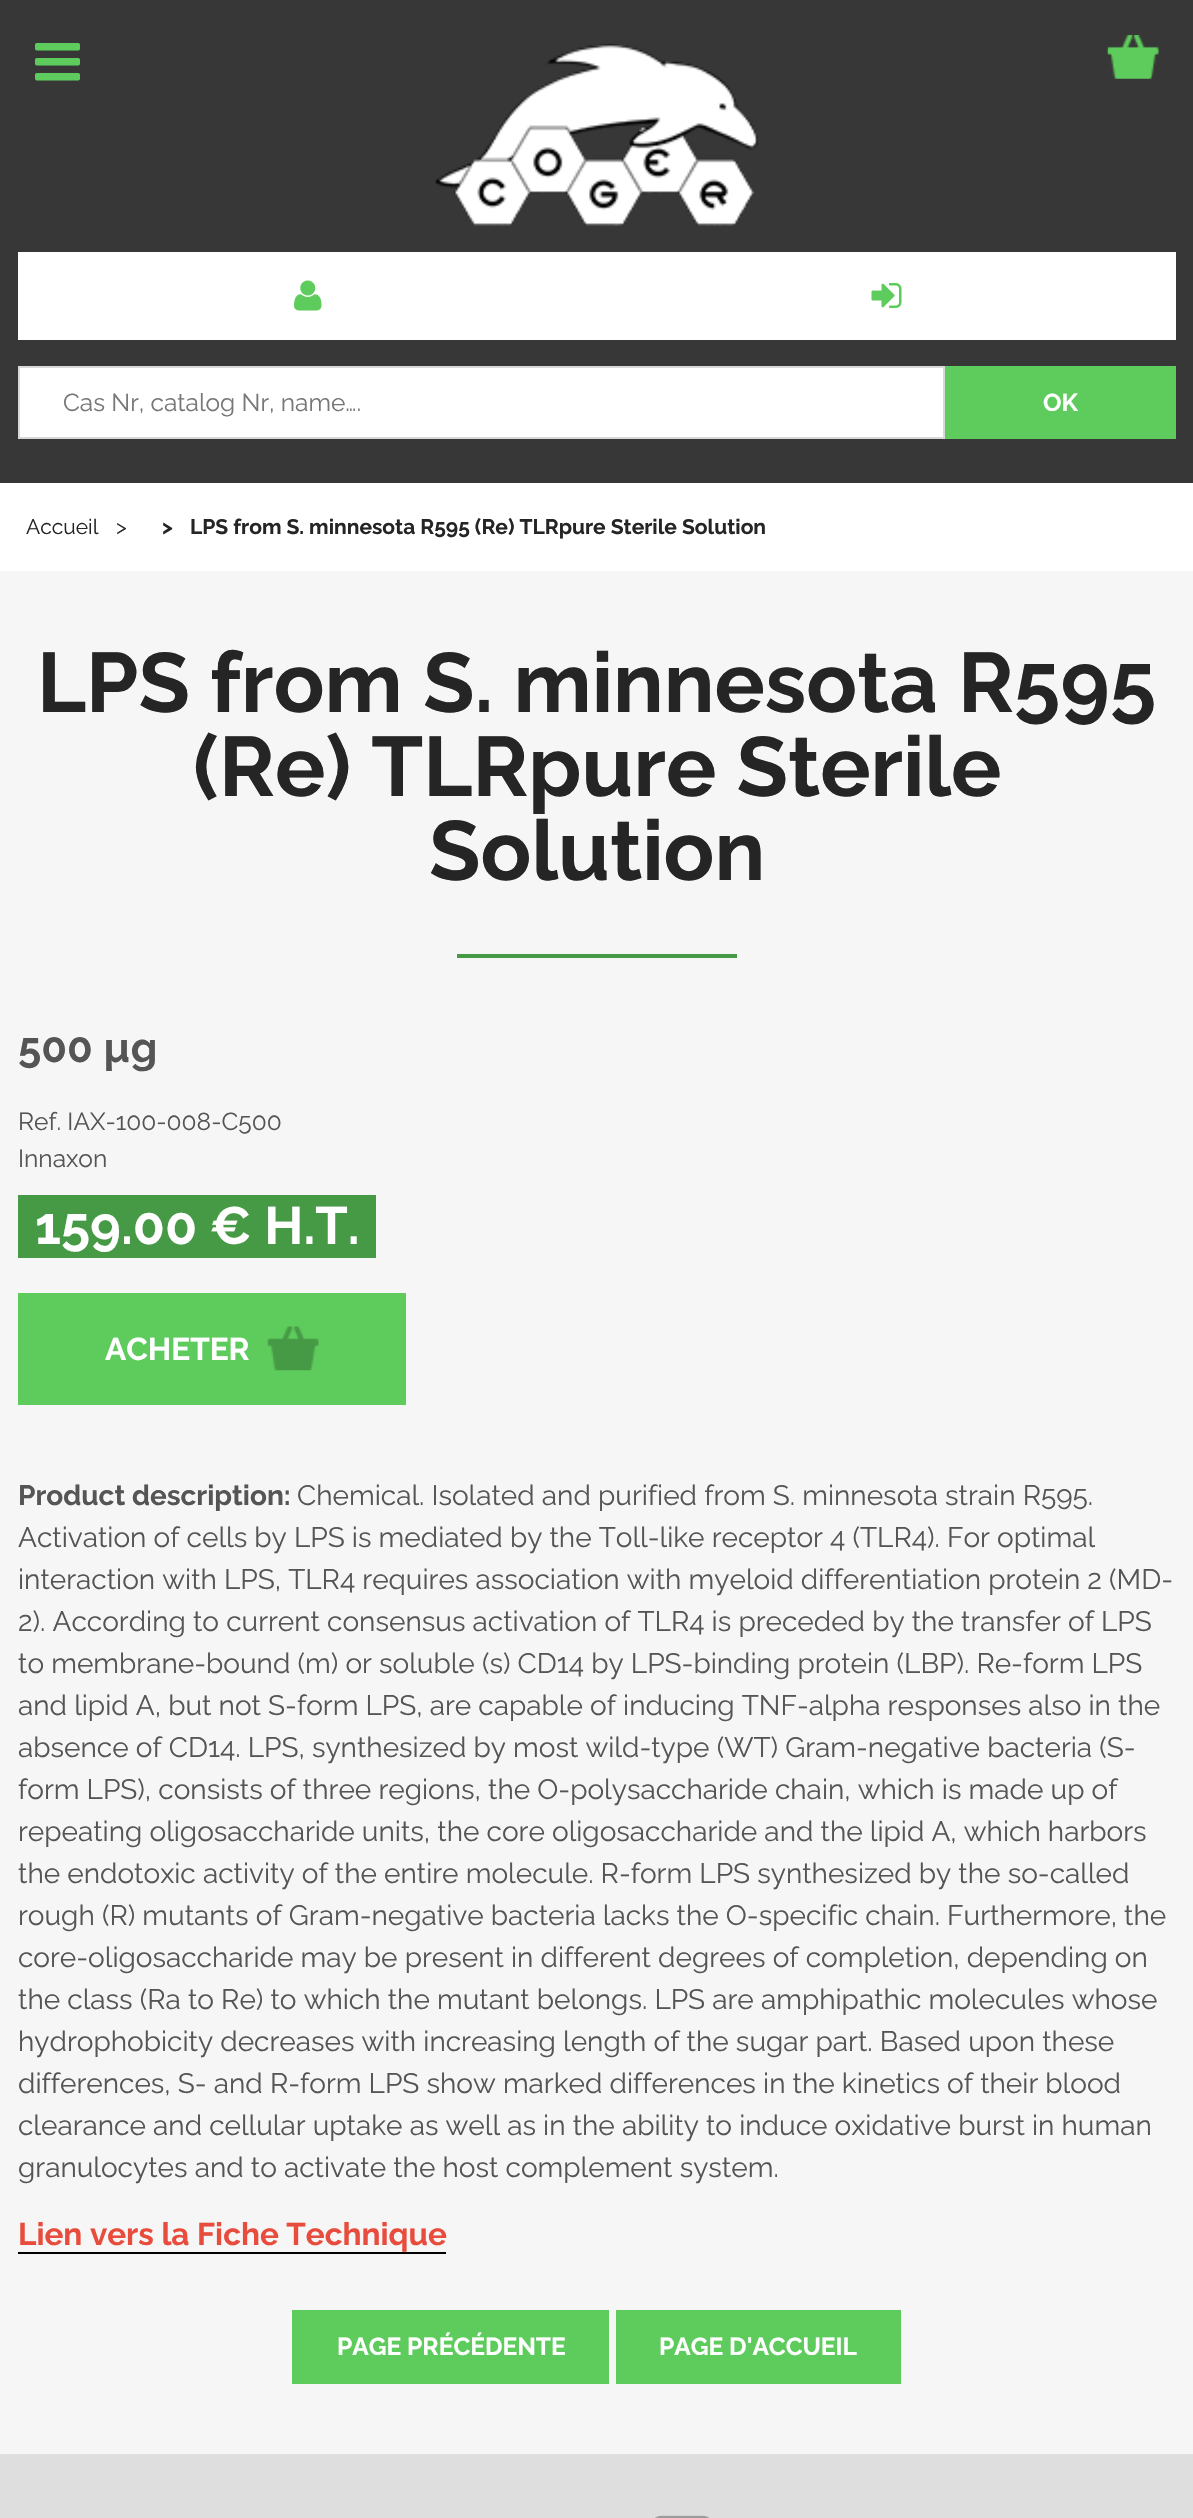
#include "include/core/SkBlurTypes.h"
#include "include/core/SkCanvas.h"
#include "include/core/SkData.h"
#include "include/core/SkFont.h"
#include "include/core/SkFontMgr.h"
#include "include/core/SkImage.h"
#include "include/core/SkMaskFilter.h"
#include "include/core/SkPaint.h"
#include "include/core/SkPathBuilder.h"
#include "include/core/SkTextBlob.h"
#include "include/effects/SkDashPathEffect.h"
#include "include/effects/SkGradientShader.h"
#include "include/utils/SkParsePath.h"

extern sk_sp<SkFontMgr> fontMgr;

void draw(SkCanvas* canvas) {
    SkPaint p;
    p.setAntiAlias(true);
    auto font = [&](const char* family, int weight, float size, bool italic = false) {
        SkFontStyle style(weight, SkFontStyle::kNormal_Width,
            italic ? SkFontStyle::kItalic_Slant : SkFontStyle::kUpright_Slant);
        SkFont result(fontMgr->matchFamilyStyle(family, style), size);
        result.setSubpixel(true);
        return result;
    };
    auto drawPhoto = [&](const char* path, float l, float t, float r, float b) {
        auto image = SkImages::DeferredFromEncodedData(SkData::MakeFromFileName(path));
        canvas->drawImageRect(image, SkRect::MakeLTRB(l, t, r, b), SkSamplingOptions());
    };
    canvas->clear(0xFFF6F6F6);
    p.setColor(0xFF373737);
    canvas->drawRect(SkRect::MakeLTRB(0, 0, 1193, 483), p);
    p.setColor(0xFFFFFFFF);
    canvas->drawRect(SkRect::MakeLTRB(18, 252, 1176, 340), p);
    drawPhoto("media/1.png", 1107, 35, 1159, 79);
    drawPhoto("media/2.png", 294, 280, 322, 311);
    drawPhoto("media/3.png", 871, 283, 902, 308);
    drawPhoto("media/4.png", 35, 43, 80, 81);
    drawPhoto("media/5.png", 435, 43, 758, 226);
    canvas->drawRect(SkRect::MakeLTRB(19, 367, 944, 438), p);
    p.setStyle(SkPaint::kStroke_Style);
    p.setStrokeWidth(2);
    p.setColor(0xFFD8D8D8);
    canvas->drawRect(SkRect::MakeLTRB(19, 367, 944, 438), p);
    auto font1 = font("Raleway", 400, 24.5f);
    p.setStyle(SkPaint::kFill_Style);
    p.setColor(0xFF777777);
    canvas->drawString("Cas Nr, catalog Nr, name….", 63, 411, font1, p);
    p.setColor(0xFF5ECC5C);
    canvas->drawRect(SkRect::MakeLTRB(945, 366, 1176, 439), p);
    auto font2 = font("Raleway", 700, 24.5f);
    p.setColor(0xFFFFFFFF);
    canvas->drawString("OK", 1043, 411, font2, p);
    canvas->drawRect(SkRect::MakeLTRB(0, 483, 1193, 571), p);
    auto font3 = font("Raleway", 400, 21);
    p.setColor(0xFF252525);
    canvas->drawString("Accueil", 26, 534, font3, p);
    canvas->drawString(">", 116, 534, font3, p);
    auto font4 = font("Raleway", 700, 21);
    canvas->drawString(">", 162, 534, font4, p);
    canvas->drawString("LPS from S. minnesota R595 (Re) TLRpure Sterile Solution", 190, 534, font4, p);
    auto font5 = font("Raleway", 700, 84);
    {
        const struct { const char* s; float x, y; } items[] = {
            {"LPS from S. minnesota R595", 37, 712},
            {"(Re) TLRpure Sterile", 193, 796},
            {"Solution", 429, 880},
        };
        for (auto [s, x, y] : items) {
            canvas->drawString(s, x, y, font5, p);
        }
    }
    p.setColor(0xFF469945);
    canvas->drawRect(SkRect::MakeLTRB(457, 954, 737, 958), p);
    auto font6 = font("Raleway", 700, 42);
    p.setColor(0xFF555555);
    canvas->drawString("500 µg", 18, 1062, font6, p);
    canvas->drawString("Ref. IAX-100-008-C500", 18, 1130, font1, p);
    canvas->drawString("Innaxon", 18, 1167, font1, p);
    p.setColor(0xFF469945);
    canvas->drawRect(SkRect::MakeLTRB(18, 1195, 376, 1258), p);
    auto font7 = font("Raleway", 700, 52.5f);
    p.setColor(0xFFFFFFFF);
    canvas->drawString("159.00 € H.T.", 35, 1244, font7, p);
    p.setColor(0xFF5ECC5C);
    canvas->drawRect(SkRect::MakeLTRB(18, 1293, 406, 1405), p);
    drawPhoto("media/6.png", 267, 1326, 319, 1371);
    auto font8 = font("Raleway", 700, 31.5f);
    p.setColor(0xFFFFFFFF);
    canvas->drawString("ACHETER", 105, 1360, font8, p);
    auto font9 = font("Raleway", 700, 28);
    p.setColor(0xFF555555);
    canvas->drawString("Product description:", 18, 1505, font9, p);
    auto font10 = font("Raleway", 400, 28);
    {
        const struct { const char* s; float x, y; } items[] = {
            {"Chemical. Isolated and purified from S. minnesota strain R595.", 297, 1505},
            {"Activation of cells by LPS is mediated by the Toll-like receptor 4 (TLR4). For optimal", 18, 1547},
            {"interaction with LPS, TLR4 requires association with myeloid differentiation protein 2 (MD-", 18, 1589},
            {"2). According to current consensus activation of TLR4 is preceded by the transfer of LPS", 18, 1631},
            {"to membrane-bound (m) or soluble (s) CD14 by LPS-binding protein (LBP). Re-form LPS", 18, 1673},
            {"and lipid A, but not S-form LPS, are capable of inducing TNF-alpha responses also in the", 18, 1715},
            {"absence of CD14. LPS, synthesized by most wild-type (WT) Gram-negative bacteria (S-", 18, 1757},
            {"form LPS), consists of three regions, the O-polysaccharide chain, which is made up of", 18, 1799},
            {"repeating oligosaccharide units, the core oligosaccharide and the lipid A, which harbors", 18, 1841},
            {"the endotoxic activity of the entire molecule. R-form LPS synthesized by the so-called", 18, 1883},
            {"rough (R) mutants of Gram-negative bacteria lacks the O-specific chain. Furthermore, the", 18, 1925},
            {"core-oligosaccharide may be present in different degrees of completion, depending on", 18, 1967},
            {"the class (Ra to Re) to which the mutant belongs. LPS are amphipathic molecules whose", 18, 2009},
            {"hydrophobicity decreases with increasing length of the sugar part. Based upon these", 18, 2051},
            {"differences, S- and R-form LPS show marked differences in the kinetics of their blood", 18, 2093},
            {"clearance and cellular uptake as well as in the ability to induce oxidative burst in human", 18, 2135},
            {"granulocytes and to activate the host complement system.", 18, 2177},
        };
        for (auto [s, x, y] : items) {
            canvas->drawString(s, x, y, font10, p);
        }
    }
    p.setColor(0xFFE74C3C);
    canvas->drawString("Lien vers la Fiche Technique", 18, 2245, font8, p);
    p.setColor(0xFF000000);
    canvas->drawRect(SkRect::MakeLTRB(18, 2252, 446, 2254), p);
    p.setColor(0xFF5ECC5C);
    canvas->drawRect(SkRect::MakeLTRB(292, 2310, 609, 2384), p);
    p.setColor(0xFFFFFFFF);
    canvas->drawString("PAGE PRÉCÉDENTE", 337, 2355, font2, p);
    p.setColor(0xFF5ECC5C);
    canvas->drawRect(SkRect::MakeLTRB(616, 2310, 901, 2384), p);
    p.setColor(0xFFFFFFFF);
    canvas->drawString("PAGE D'ACCUEIL", 659, 2355, font2, p);
    p.setColor(0xFFDEDEDE);
    canvas->drawRect(SkRect::MakeLTRB(0, 2454, 1193, 2518), p);
    drawPhoto("media/7.png", 655, 2515, 710, 2518);
}
